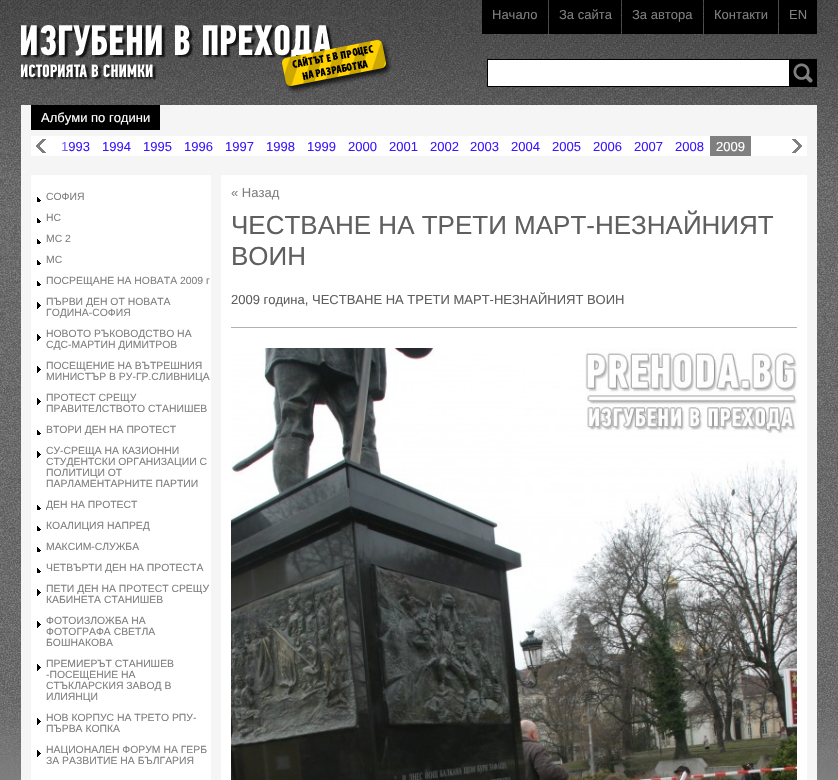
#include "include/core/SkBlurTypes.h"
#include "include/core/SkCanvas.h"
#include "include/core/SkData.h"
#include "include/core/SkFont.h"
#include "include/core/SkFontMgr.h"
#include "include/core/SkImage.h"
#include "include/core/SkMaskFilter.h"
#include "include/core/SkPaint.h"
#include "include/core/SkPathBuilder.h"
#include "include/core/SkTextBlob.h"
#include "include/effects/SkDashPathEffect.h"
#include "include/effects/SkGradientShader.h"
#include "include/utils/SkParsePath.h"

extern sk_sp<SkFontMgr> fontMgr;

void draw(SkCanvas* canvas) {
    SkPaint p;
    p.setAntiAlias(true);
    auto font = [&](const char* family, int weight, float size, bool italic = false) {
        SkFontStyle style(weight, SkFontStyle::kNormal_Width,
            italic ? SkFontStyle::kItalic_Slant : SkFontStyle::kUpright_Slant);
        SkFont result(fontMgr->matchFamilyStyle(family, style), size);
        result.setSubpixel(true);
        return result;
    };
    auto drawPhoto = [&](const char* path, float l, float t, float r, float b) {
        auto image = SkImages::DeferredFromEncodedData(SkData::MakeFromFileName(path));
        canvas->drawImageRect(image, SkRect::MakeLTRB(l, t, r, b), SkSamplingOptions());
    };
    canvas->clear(0xFFFFFFFF);
    drawPhoto("media/1.png", 0, 0, 838, 780);
    p.setColor(0xFF000000);
    canvas->drawRect(SkRect::MakeLTRB(482, 0, 548, 34), p);
    auto font1 = font("Liberation Sans", 400, 13);
    p.setColor(0xFF7F7F7F);
    canvas->drawString("Начало", 492, 19, font1, p);
    p.setColor(0xFF000000);
    canvas->drawRect(SkRect::MakeLTRB(549, 0, 621, 34), p);
    p.setColor(0xFF7F7F7F);
    canvas->drawString("За сайта", 559, 19, font1, p);
    p.setColor(0xFF000000);
    canvas->drawRect(SkRect::MakeLTRB(622, 0, 703, 34), p);
    p.setColor(0xFF7F7F7F);
    canvas->drawString("За автора", 632, 19, font1, p);
    p.setColor(0xFF000000);
    canvas->drawRect(SkRect::MakeLTRB(704, 0, 778, 34), p);
    p.setColor(0xFF7F7F7F);
    canvas->drawString("Контакти", 714, 19, font1, p);
    p.setColor(0xFF000000);
    canvas->drawRect(SkRect::MakeLTRB(779, 0, 817, 34), p);
    p.setColor(0xFF7F7F7F);
    canvas->drawString("EN", 789, 19, font1, p);
    drawPhoto("media/2.png", 21, 25, 334, 59);
    drawPhoto("media/3.png", 282, 40, 392, 93);
    p.setColor(0xFFFFFFFF);
    canvas->drawRect(SkRect::MakeLTRB(488, 60, 789, 86), p);
    p.setStyle(SkPaint::kStroke_Style);
    p.setStrokeWidth(1);
    p.setColor(0xFF000000);
    canvas->drawRect(SkRect::MakeLTRB(487.5f, 59.5f, 790.5f, 86.5f), p);
    p.setStyle(SkPaint::kFill_Style);
    canvas->drawRect(SkRect::MakeLTRB(789, 59, 817, 87), p);
    drawPhoto("media/4.png", 793, 63, 813, 83);
    drawPhoto("media/5.png", 21, 64, 157, 80);
    p.setColor(0xFFF5F5F5);
    canvas->drawRect(SkRect::MakeLTRB(21, 105, 817, 780), p);
    p.setColor(0xFF000000);
    canvas->drawRect(SkRect::MakeLTRB(31, 105, 160, 130), p);
    p.setColor(0xFFFFFFFF);
    canvas->drawString("Албуми по години", 41, 122, font1, p);
    canvas->drawRect(SkRect::MakeLTRB(31, 136, 807, 156), p);
    drawPhoto("media/6.png", 36, 139, 46, 153);
    p.setColor(0xFF3B19FF);
    {
        const struct { const char* s; float x, y; } items[] = {
            {"1993", 61, 151},
            {"1994", 102, 151},
            {"1995", 143, 151},
            {"1996", 184, 151},
            {"1997", 225, 151},
            {"1998", 266, 151},
            {"1999", 307, 151},
            {"2000", 348, 151},
            {"2001", 389, 151},
            {"2002", 430, 151},
            {"2003", 470, 151},
            {"2004", 511, 151},
            {"2005", 552, 151},
            {"2006", 593, 151},
            {"2007", 634, 151},
            {"2008", 675, 151},
        };
        for (auto [s, x, y] : items) {
            canvas->drawString(s, x, y, font1, p);
        }
    }
    p.setColor(0xFF7F7F7F);
    canvas->drawRect(SkRect::MakeLTRB(710, 136, 751, 156), p);
    p.setColor(0xFFFFFFFF);
    canvas->drawString("2009", 716, 151, font1, p);
    drawPhoto("media/7.png", 792, 139, 802, 153);
    drawPhoto("media/8.png", 62, 142, 71, 151);
    canvas->drawRect(SkRect::MakeLTRB(31, 175, 211, 780), p);
    drawPhoto("media/9.png", 37, 197, 41, 202);
    auto font2 = font("Liberation Sans", 400, 10.4f);
    p.setColor(0xFF7F7F7F);
    canvas->drawString("СОФИЯ", 46, 200, font2, p);
    drawPhoto("media/9.png", 37, 218, 41, 223);
    canvas->drawString("НС", 46, 221, font2, p);
    drawPhoto("media/9.png", 37, 239, 41, 244);
    canvas->drawString("МС 2", 46, 242, font2, p);
    drawPhoto("media/9.png", 37, 260, 41, 265);
    canvas->drawString("МС", 46, 263, font2, p);
    drawPhoto("media/9.png", 37, 281, 41, 286);
    canvas->drawString("ПОСРЕЩАНЕ НА НОВАТА 2009 г", 46, 284, font2, p);
    drawPhoto("media/10.png", 37, 302, 41, 309);
    canvas->drawString("ПЪРВИ ДЕН ОТ НОВАТА", 46, 305, font2, p);
    canvas->drawString("ГОДИНА-СОФИЯ", 46, 316, font2, p);
    drawPhoto("media/10.png", 37, 334, 41, 341);
    canvas->drawString("НОВОТО РЪКОВОДСТВО НА", 46, 337, font2, p);
    canvas->drawString("СДС-МАРТИН ДИМИТРОВ", 46, 348, font2, p);
    drawPhoto("media/10.png", 37, 366, 41, 373);
    canvas->drawString("ПОСЕЩЕНИЕ НА ВЪТРЕШНИЯ", 46, 369, font2, p);
    canvas->drawString("МИНИСТЪР В РУ-ГР.СЛИВНИЦА", 46, 380, font2, p);
    drawPhoto("media/10.png", 37, 398, 41, 405);
    canvas->drawString("ПРОТЕСТ СРЕЩУ", 46, 401, font2, p);
    canvas->drawString("ПРАВИТЕЛСТВОТО СТАНИШЕВ", 46, 412, font2, p);
    drawPhoto("media/9.png", 37, 430, 41, 435);
    canvas->drawString("ВТОРИ ДЕН НА ПРОТЕСТ", 46, 433, font2, p);
    drawPhoto("media/10.png", 37, 451, 41, 458);
    {
        const struct { const char* s; float x, y; } items[] = {
            {"СУ-СРЕЩА НА КАЗИОННИ", 46, 454},
            {"СТУДЕНТСКИ ОРГАНИЗАЦИИ С", 46, 465},
            {"ПОЛИТИЦИ ОТ", 46, 476},
            {"ПАРЛАМЕНТАРНИТЕ ПАРТИИ", 46, 487},
        };
        for (auto [s, x, y] : items) {
            canvas->drawString(s, x, y, font2, p);
        }
    }
    drawPhoto("media/9.png", 37, 505, 41, 510);
    canvas->drawString("ДЕН НА ПРОТЕСТ", 46, 508, font2, p);
    drawPhoto("media/9.png", 37, 526, 41, 531);
    canvas->drawString("КОАЛИЦИЯ НАПРЕД", 46, 529, font2, p);
    drawPhoto("media/9.png", 37, 547, 41, 552);
    canvas->drawString("МАКСИМ-СЛУЖБА", 46, 550, font2, p);
    drawPhoto("media/9.png", 37, 568, 41, 573);
    canvas->drawString("ЧЕТВЪРТИ ДЕН НА ПРОТЕСТА", 46, 571, font2, p);
    drawPhoto("media/10.png", 37, 589, 41, 596);
    canvas->drawString("ПЕТИ ДЕН НА ПРОТЕСТ СРЕЩУ", 46, 592, font2, p);
    canvas->drawString("КАБИНЕТА СТАНИШЕВ", 46, 603, font2, p);
    drawPhoto("media/10.png", 37, 621, 41, 628);
    {
        const struct { const char* s; float x, y; } items[] = {
            {"ФОТОИЗЛОЖБА НА", 46, 624},
            {"ФОТОГРАФА СВЕТЛА", 46, 635},
            {"БОШНАКОВА", 46, 646},
        };
        for (auto [s, x, y] : items) {
            canvas->drawString(s, x, y, font2, p);
        }
    }
    drawPhoto("media/10.png", 37, 664, 41, 671);
    {
        const struct { const char* s; float x, y; } items[] = {
            {"ПРЕМИЕРЪТ СТАНИШЕВ", 46, 667},
            {"-ПОСЕЩЕНИЕ НА", 46, 678},
            {"СТЪКЛАРСКИЯ ЗАВОД В", 46, 689},
            {"ИЛИЯНЦИ", 46, 700},
        };
        for (auto [s, x, y] : items) {
            canvas->drawString(s, x, y, font2, p);
        }
    }
    drawPhoto("media/10.png", 37, 718, 41, 725);
    canvas->drawString("НОВ КОРПУС НА ТРЕТО РПУ-", 46, 721, font2, p);
    canvas->drawString("ПЪРВА КОПКА", 46, 732, font2, p);
    drawPhoto("media/10.png", 37, 750, 41, 757);
    canvas->drawString("НАЦИОНАЛЕН ФОРУМ НА ГЕРБ", 46, 753, font2, p);
    canvas->drawString("ЗА РАЗВИТИЕ НА БЪЛГАРИЯ", 46, 764, font2, p);
    p.setColor(0xFFFFFFFF);
    canvas->drawRect(SkRect::MakeLTRB(221, 175, 807, 780), p);
    p.setColor(0xFF7F7F7F);
    canvas->drawString("« Назад", 231, 197, font1, p);
    auto font3 = font("Liberation Sans", 400, 26);
    p.setColor(0xFF5F5F5F);
    canvas->drawString("ЧЕСТВАНЕ НА ТРЕТИ МАРТ-НЕЗНАЙНИЯТ", 231, 234, font3, p);
    canvas->drawString("ВОИН", 231, 265, font3, p);
    canvas->drawString("2009 година, ЧЕСТВАНЕ НА ТРЕТИ МАРТ-НЕЗНАЙНИЯТ ВОИН", 231, 304, font1, p);
    p.setColor(0xFFB2B2B2);
    canvas->drawRect(SkRect::MakeLTRB(231, 327, 797, 328), p);
    drawPhoto("media/11.png", 231, 348, 797, 780);
}
